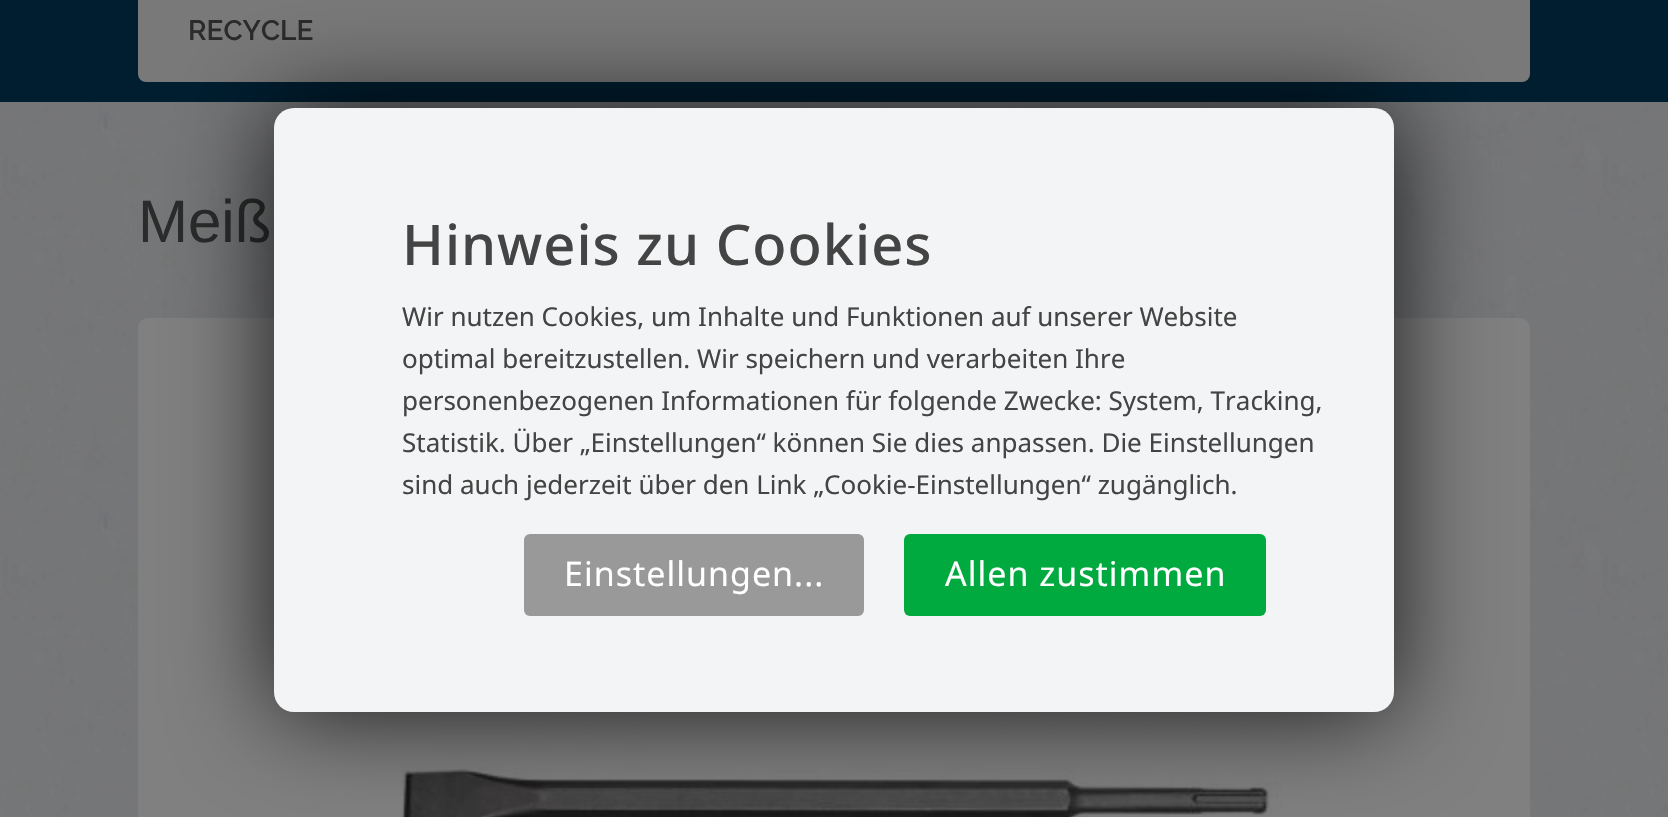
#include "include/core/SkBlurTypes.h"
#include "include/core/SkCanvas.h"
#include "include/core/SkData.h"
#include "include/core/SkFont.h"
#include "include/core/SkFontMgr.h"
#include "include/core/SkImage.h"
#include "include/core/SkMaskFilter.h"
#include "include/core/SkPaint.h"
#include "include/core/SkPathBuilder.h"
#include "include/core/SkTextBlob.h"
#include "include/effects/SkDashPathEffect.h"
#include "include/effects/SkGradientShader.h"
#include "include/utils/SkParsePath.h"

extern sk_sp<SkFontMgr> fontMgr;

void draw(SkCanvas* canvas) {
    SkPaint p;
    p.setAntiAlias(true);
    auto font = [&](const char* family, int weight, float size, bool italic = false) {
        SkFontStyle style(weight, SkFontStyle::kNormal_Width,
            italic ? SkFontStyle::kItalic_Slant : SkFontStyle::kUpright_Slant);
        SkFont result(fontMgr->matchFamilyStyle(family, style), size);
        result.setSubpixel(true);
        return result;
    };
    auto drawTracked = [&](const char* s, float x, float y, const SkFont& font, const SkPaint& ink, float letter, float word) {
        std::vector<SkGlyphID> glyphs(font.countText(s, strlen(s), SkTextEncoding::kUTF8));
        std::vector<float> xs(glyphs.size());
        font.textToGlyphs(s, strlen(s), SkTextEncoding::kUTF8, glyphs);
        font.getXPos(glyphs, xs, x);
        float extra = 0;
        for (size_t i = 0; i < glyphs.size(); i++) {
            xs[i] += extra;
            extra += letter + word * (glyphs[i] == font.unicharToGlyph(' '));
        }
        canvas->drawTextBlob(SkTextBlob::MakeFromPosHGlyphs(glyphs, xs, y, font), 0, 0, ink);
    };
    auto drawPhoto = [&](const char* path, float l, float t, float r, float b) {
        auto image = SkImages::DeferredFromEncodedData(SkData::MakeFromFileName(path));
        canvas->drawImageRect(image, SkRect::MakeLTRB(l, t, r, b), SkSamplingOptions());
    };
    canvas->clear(0xFFFFFFFF);
    drawPhoto("media/1.png", 0, 102, 1668, 817);
    p.setColor(0xFF001E30);
    canvas->drawRect(SkRect::MakeLTRB(0, 0, 1668, 102), p);
    p.setColor(0xFF797979);
    canvas->drawRoundRect(SkRect::MakeLTRB(138, -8, 1530, 82), 8, 8, p);
    auto font1 = font("Raleway", 100, 28);
    p.setColor(0xFF2B2B2B);
    canvas->drawString("RECYCLE", 188, 40, font1, p);
    auto font2 = font("Liberation Sans", 400, 60);
    canvas->drawString("Meiß", 138, 242, font2, p);
    p.setColor(0xFF808080);
    canvas->drawRoundRect(SkRect::MakeLTRB(138, 318, 1530, 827), 10, 10, p);
    drawPhoto("media/2.png", 401, 712, 1282, 817);
    p.setColor(0xCC000000);
    p.setMaskFilter(SkMaskFilter::MakeBlur(kNormal_SkBlurStyle, 50));
    canvas->drawRoundRect(SkRect::MakeLTRB(274, 108, 1394, 712), 20, 20, p);
    p.setMaskFilter(nullptr);
    p.setColor(0xFFF3F4F5);
    canvas->drawRoundRect(SkRect::MakeLTRB(274, 108, 1394, 712), 20, 20, p);
    auto font3 = font("Noto Sans", 500, 56);
    p.setColor(0xFF444444);
    drawTracked("Hinweis zu Cookies", 402, 265, font3, p, 1, 0);
    auto font4 = font("Noto Sans", 400, 26);
    {
        const struct { const char* s; float x, y; } items[] = {
            {"Wir nutzen Cookies, um Inhalte und Funktionen auf unserer Website", 402, 326},
            {"optimal bereitzustellen. Wir speichern und verarbeiten Ihre", 402, 368},
            {"personenbezogenen Informationen für folgende Zwecke: System, Tracking,", 402, 410},
            {"Statistik. Über „Einstellungen“ können Sie dies anpassen. Die Einstellungen", 402, 452},
            {"sind auch jederzeit über den Link „Cookie-Einstellungen“ zugänglich.", 402, 494},
        };
        for (auto [s, x, y] : items) {
            canvas->drawString(s, x, y, font4, p);
        }
    }
    p.setColor(0xFF999999);
    canvas->drawRoundRect(SkRect::MakeLTRB(524, 534, 864, 616), 6, 6, p);
    auto font5 = font("Noto Sans", 400, 34);
    p.setColor(0xFFFFFFFF);
    drawTracked("Einstellungen...", 564, 586, font5, p, 1, 0);
    p.setColor(0xFF00AA3E);
    canvas->drawRoundRect(SkRect::MakeLTRB(904, 534, 1266, 616), 6, 6, p);
    p.setColor(0xFFFFFFFF);
    drawTracked("Allen zustimmen", 945, 586, font5, p, 1, 0);
}
